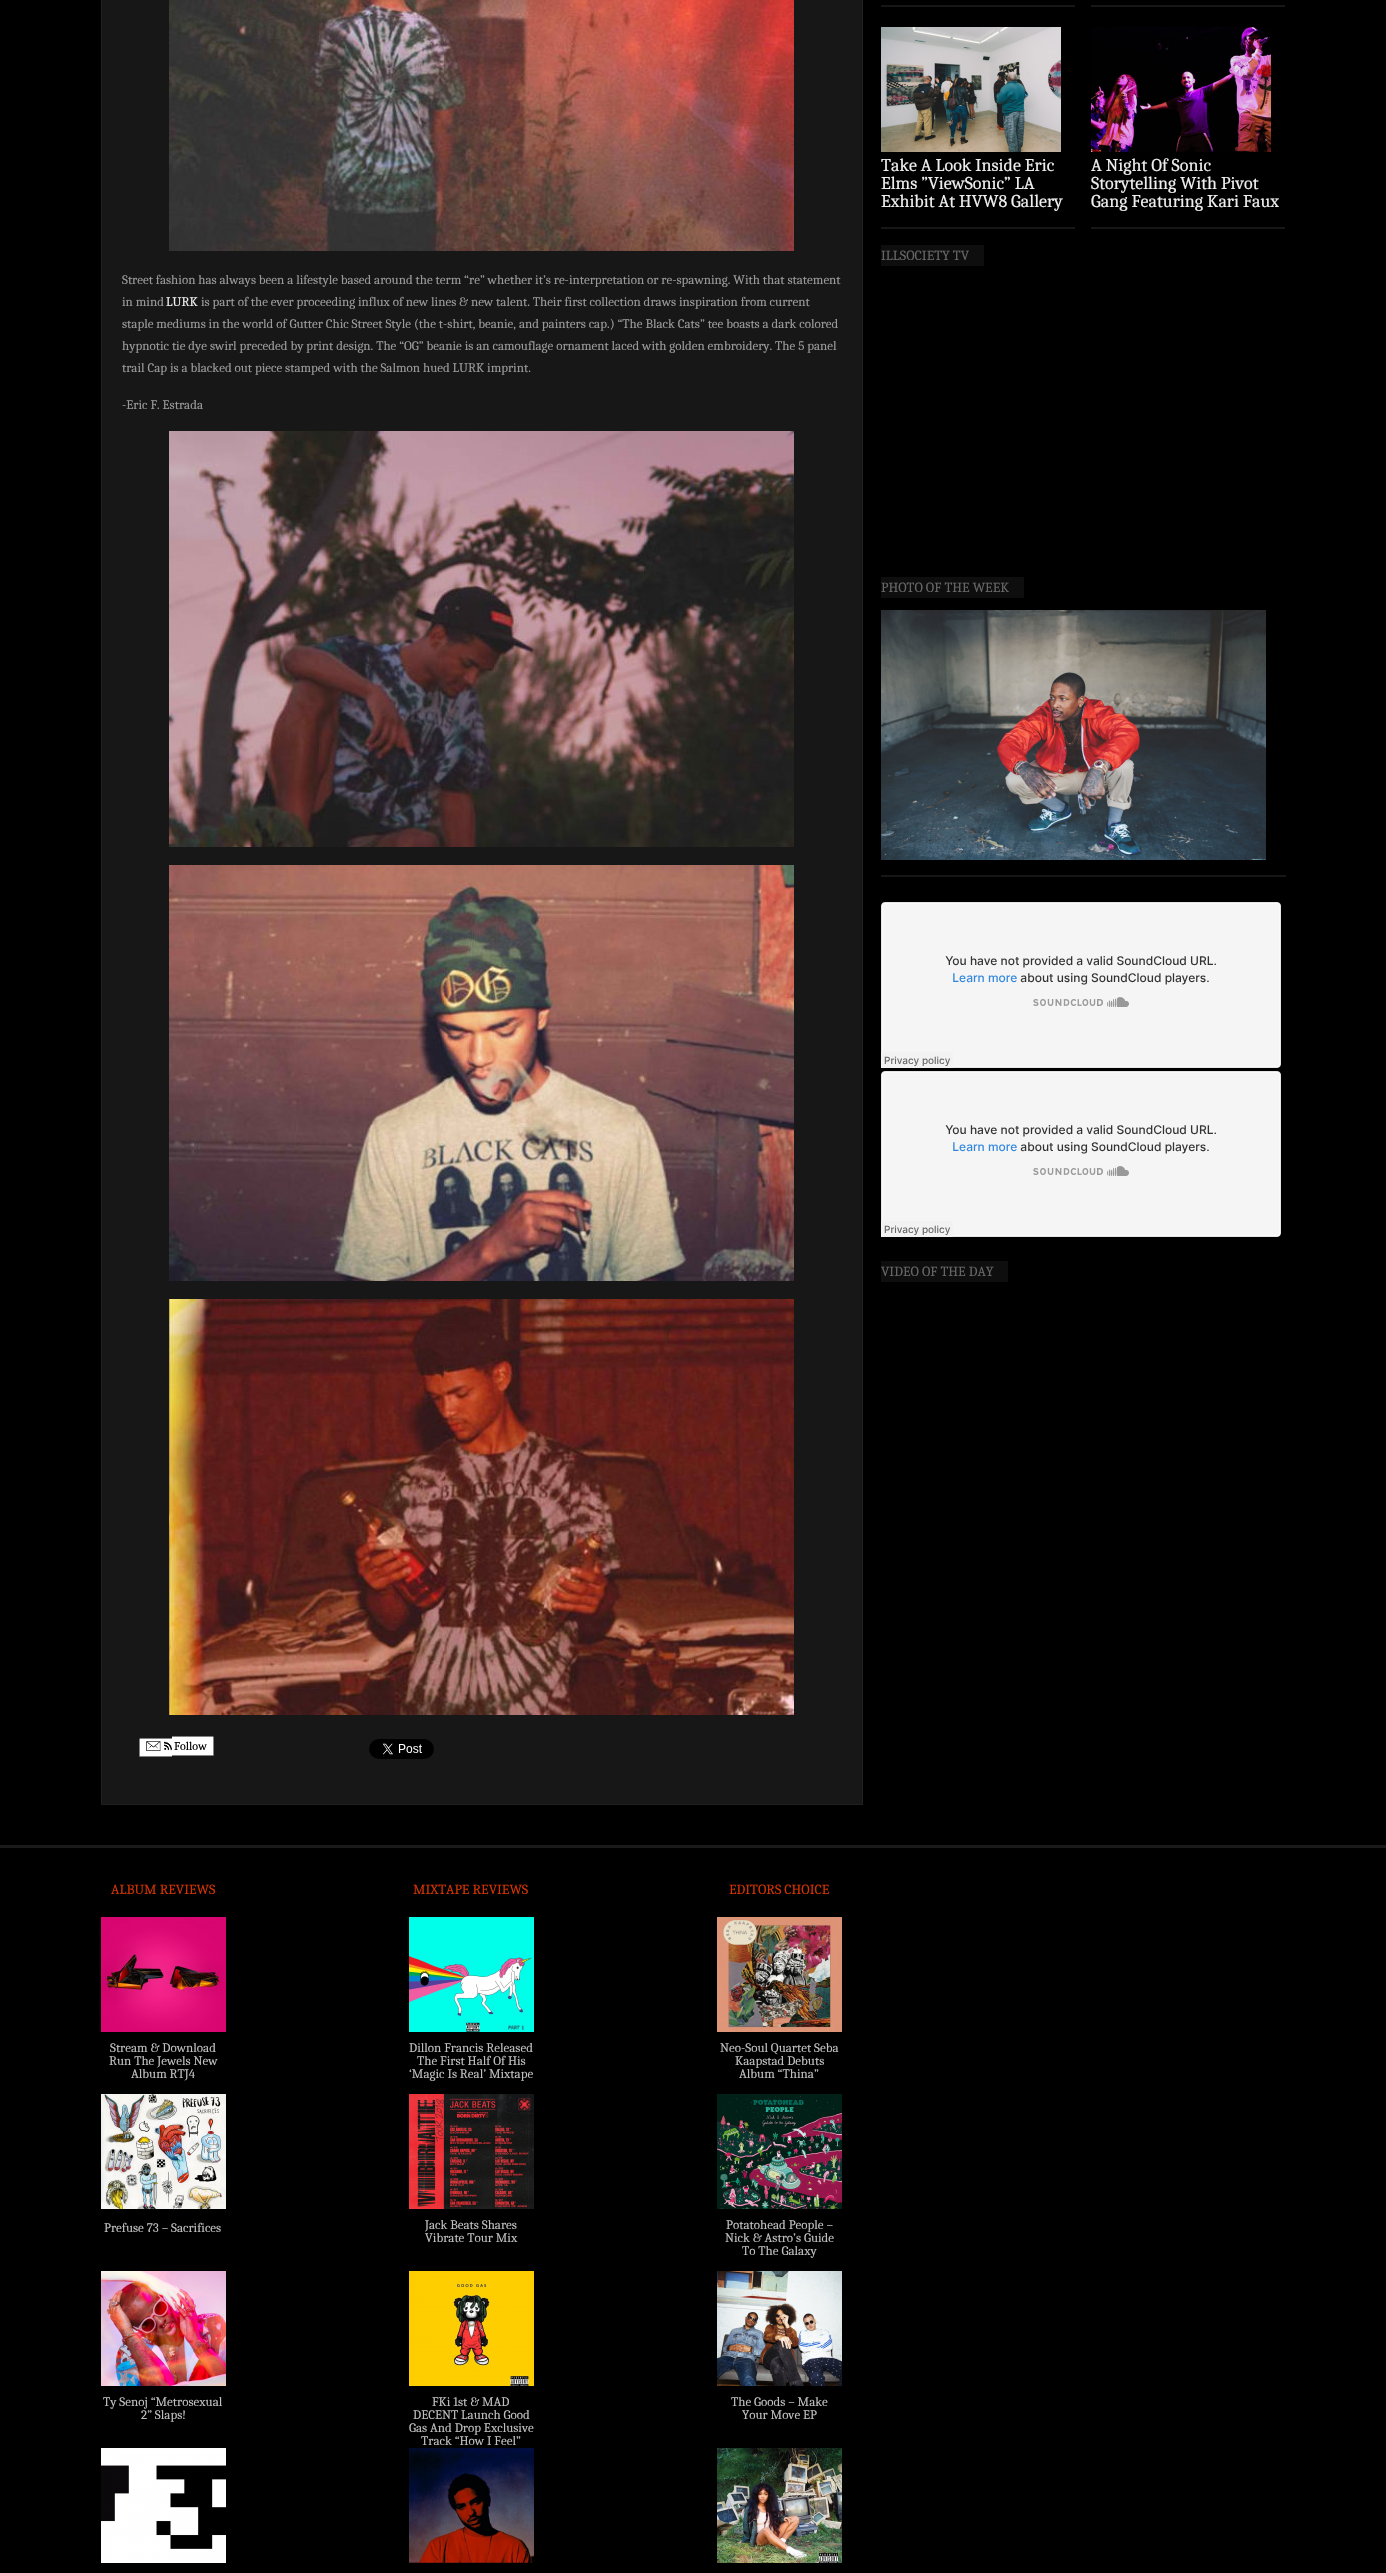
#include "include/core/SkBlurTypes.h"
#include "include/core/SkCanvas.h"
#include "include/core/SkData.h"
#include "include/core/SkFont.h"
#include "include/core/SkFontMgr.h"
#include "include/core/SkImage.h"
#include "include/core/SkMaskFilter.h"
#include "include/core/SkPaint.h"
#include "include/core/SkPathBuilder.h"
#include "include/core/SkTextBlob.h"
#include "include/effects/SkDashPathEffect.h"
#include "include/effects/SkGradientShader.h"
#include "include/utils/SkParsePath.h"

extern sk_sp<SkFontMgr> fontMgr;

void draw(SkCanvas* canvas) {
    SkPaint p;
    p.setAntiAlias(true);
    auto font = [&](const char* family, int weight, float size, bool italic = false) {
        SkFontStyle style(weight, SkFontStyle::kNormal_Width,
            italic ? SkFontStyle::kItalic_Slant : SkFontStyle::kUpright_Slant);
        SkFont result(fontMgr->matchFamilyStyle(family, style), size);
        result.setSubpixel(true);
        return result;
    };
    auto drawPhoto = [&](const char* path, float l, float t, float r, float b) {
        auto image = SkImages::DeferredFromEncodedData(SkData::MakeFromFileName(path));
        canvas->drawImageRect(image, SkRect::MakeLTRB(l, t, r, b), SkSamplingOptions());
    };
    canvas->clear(0xFF000000);
    p.setColor(0xFF171717);
    canvas->drawRect(SkRect::MakeLTRB(101.5f, -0.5f, 862.5f, 1804.5f), p);
    p.setStyle(SkPaint::kStroke_Style);
    p.setStrokeWidth(1);
    p.setColor(0xFF202020);
    canvas->drawRect(SkRect::MakeLTRB(101.5f, -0.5f, 862.5f, 1804.5f), p);
    drawPhoto("media/1.png", 169, 0, 794, 251);
    auto font1 = font("Caladea", 400, 13);
    p.setStyle(SkPaint::kFill_Style);
    p.setColor(0xFF999999);
    canvas->drawString("Street fashion has always been a lifestyle based around the term “re” whether it’s re-interpretation or re-spawning. With that statement", 122, 284, font1, p);
    canvas->drawString("in mind", 122, 306, font1, p);
    p.setColor(0xFFEEEEEE);
    canvas->drawString("LURK", 166, 306, font1, p);
    p.setColor(0xFF999999);
    {
        const struct { const char* s; float x, y; } items[] = {
            {"is part of the ever proceeding influx of new lines & new talent. Their first collection draws inspiration from current", 201, 306},
            {"staple mediums in the world of Gutter Chic Street Style (the t-shirt, beanie, and painters cap.) “The Black Cats” tee boasts a dark colored", 122, 328},
            {"hypnotic tie dye swirl preceded by print design. The “OG” beanie is an camouflage ornament laced with golden embroidery. The 5 panel", 122, 350},
            {"trail Cap is a blacked out piece stamped with the Salmon hued LURK imprint.", 122, 372},
            {"-Eric F. Estrada", 122, 409},
        };
        for (auto [s, x, y] : items) {
            canvas->drawString(s, x, y, font1, p);
        }
    }
    drawPhoto("media/2.png", 169, 431, 794, 847);
    drawPhoto("media/3.png", 169, 865, 794, 1281);
    drawPhoto("media/4.png", 169, 1299, 794, 1715);
    p.setColor(0xFFFFFFFF);
    canvas->drawPath(SkPathBuilder().moveTo(141, 1738).lineTo(172, 1738).lineTo(172, 1757).lineTo(141, 1757).cubicTo(140, 1757, 139, 1756, 139, 1755).lineTo(139, 1740).cubicTo(139, 1739, 140, 1738, 141, 1738).close().detach(), p);
    drawPhoto("media/5.png", 146, 1741, 172, 1751);
    canvas->drawPath(SkPathBuilder().moveTo(172, 1736).lineTo(212, 1736).cubicTo(213, 1736, 214, 1737, 214, 1738).lineTo(214, 1754).cubicTo(214, 1755, 213, 1756, 212, 1756).lineTo(172, 1756).close().detach(), p);
    auto font2 = font("Caladea", 400, 12);
    p.setColor(0xFF000000);
    canvas->drawString("Follow", 174, 1750, font2, p);
    {
        const struct { float l, t, r, b; SkColor color; } items[] = {
            {140, 1738, 172, 1739, 0xFF808080},
            {140, 1756, 172, 1757, 0xFF808080},
            {139, 1739, 140, 1756, 0xFF808080},
            {172, 1736, 213, 1737, 0xFF808080},
            {213, 1737, 214, 1755, 0xFF808080},
            {172, 1755, 213, 1756, 0xFF808080},
        };
        for (auto [l, t, r, b, color] : items) {
            p.setColor(color);
            canvas->drawRect(SkRect::MakeLTRB(l, t, r, b), p);
        }
    }
    drawPhoto("media/6.png", 369, 1739, 434, 1759);
    p.setColor(0xFF161616);
    canvas->drawRect(SkRect::MakeLTRB(881, 5, 1075, 7), p);
    canvas->drawRect(SkRect::MakeLTRB(1091, 5, 1285, 7), p);
    drawPhoto("media/7.png", 881, 27, 1061, 152);
    canvas->save();
    canvas->clipRect(SkRect::MakeLTRB(881, 157, 1075, 212));
    auto font3 = font("Caladea", 400, 18);
    p.setColor(0xFFEEEEEE);
    canvas->drawString("Take A Look Inside Eric", 881, 171, font3, p);
    canvas->restore();
    canvas->drawString("Elms ”ViewSonic” LA", 881, 189, font3, p);
    canvas->drawString("Exhibit At HVW8 Gallery", 881, 207, font3, p);
    p.setColor(0xFF161616);
    canvas->drawRect(SkRect::MakeLTRB(881, 227, 1075, 229), p);
    drawPhoto("media/8.png", 1091, 27, 1271, 152);
    p.setColor(0xFFEEEEEE);
    {
        const struct { const char* s; float x, y; } items[] = {
            {"A Night Of Sonic", 1091, 171},
            {"Storytelling With Pivot", 1091, 189},
            {"Gang Featuring Kari Faux", 1091, 207},
        };
        for (auto [s, x, y] : items) {
            canvas->drawString(s, x, y, font3, p);
        }
    }
    p.setColor(0xFF161616);
    canvas->drawRect(SkRect::MakeLTRB(1091, 227, 1285, 229), p);
    p.setColor(0xFF0E0E0E);
    canvas->drawRect(SkRect::MakeLTRB(881, 245, 984, 266), p);
    auto font4 = font("Caladea", 400, 14);
    p.setColor(0xFF666666);
    canvas->drawString("ILLSOCIETY TV", 881, 260, font4, p);
    p.setColor(0xFF0E0E0E);
    canvas->drawRect(SkRect::MakeLTRB(881, 577, 1024, 598), p);
    p.setColor(0xFF666666);
    canvas->drawString("PHOTO OF THE WEEK", 881, 592, font4, p);
    drawPhoto("media/9.png", 881, 610, 1266, 860);
    p.setColor(0xFF161616);
    canvas->drawRect(SkRect::MakeLTRB(881, 875, 1286, 877), p);
    drawPhoto("media/10.png", 881, 902, 1281, 1068);
    drawPhoto("media/10.png", 881, 1071, 1281, 1237);
    p.setColor(0xFF0E0E0E);
    canvas->drawRect(SkRect::MakeLTRB(881, 1261, 1008, 1282), p);
    p.setColor(0xFF666666);
    canvas->drawString("VIDEO OF THE DAY", 881, 1276, font4, p);
    p.setColor(0xFF1A1A1A);
    canvas->drawRect(SkRect::MakeLTRB(0, 1845, 1386, 1848), p);
    p.setColor(0xFFD03300);
    canvas->drawString("ALBUM REVIEWS", 111, 1894, font4, p);
    drawPhoto("media/11.png", 101, 1917, 226, 2032);
    p.setColor(0xFFBFBFBF);
    {
        const struct { const char* s; float x, y; } items[] = {
            {"Stream & Download", 110, 2052},
            {"Run The Jewels New", 109, 2065},
            {"Album RTJ4", 131, 2078},
        };
        for (auto [s, x, y] : items) {
            canvas->drawString(s, x, y, font1, p);
        }
    }
    drawPhoto("media/12.png", 101, 2094, 226, 2209);
    canvas->drawString("Prefuse 73 – Sacrifices", 104, 2232, font1, p);
    drawPhoto("media/13.png", 101, 2271, 226, 2386);
    canvas->drawString("Ty Senoj “Metrosexual", 103, 2406, font1, p);
    canvas->drawString("2” Slaps!", 141, 2419, font1, p);
    drawPhoto("media/14.png", 101, 2448, 226, 2563);
    p.setColor(0xFFD03300);
    canvas->drawString("MIXTAPE REVIEWS", 413, 1894, font4, p);
    drawPhoto("media/15.png", 409, 1917, 534, 2032);
    p.setColor(0xFFBFBFBF);
    {
        const struct { const char* s; float x, y; } items[] = {
            {"Dillon Francis Released", 409, 2052},
            {"The First Half Of His", 417, 2065},
            {"‘Magic Is Real’ Mixtape", 409, 2078},
        };
        for (auto [s, x, y] : items) {
            canvas->drawString(s, x, y, font1, p);
        }
    }
    drawPhoto("media/16.png", 409, 2094, 534, 2209);
    canvas->drawString("Jack Beats Shares", 425, 2229, font1, p);
    canvas->drawString("Vibrate Tour Mix", 425, 2242, font1, p);
    drawPhoto("media/17.png", 409, 2271, 534, 2386);
    {
        const struct { const char* s; float x, y; } items[] = {
            {"FKi 1st & MAD", 432, 2406},
            {"DECENT Launch Good", 413, 2419},
            {"Gas And Drop Exclusive", 409, 2432},
            {"Track “How I Feel”", 421, 2445},
        };
        for (auto [s, x, y] : items) {
            canvas->drawString(s, x, y, font1, p);
        }
    }
    drawPhoto("media/18.png", 409, 2448, 534, 2563);
    p.setColor(0xFFD03300);
    canvas->drawString("EDITORS CHOICE", 729, 1894, font4, p);
    drawPhoto("media/19.png", 717, 1917, 842, 2032);
    p.setColor(0xFFBFBFBF);
    {
        const struct { const char* s; float x, y; } items[] = {
            {"Neo-Soul Quartet Seba", 720, 2052},
            {"Kaapstad Debuts", 735, 2065},
            {"Album “Thina”", 739, 2078},
        };
        for (auto [s, x, y] : items) {
            canvas->drawString(s, x, y, font1, p);
        }
    }
    drawPhoto("media/20.png", 717, 2094, 842, 2209);
    {
        const struct { const char* s; float x, y; } items[] = {
            {"Potatohead People –", 726, 2229},
            {"Nick & Astro’s Guide", 725, 2242},
            {"To The Galaxy", 742, 2255},
        };
        for (auto [s, x, y] : items) {
            canvas->drawString(s, x, y, font1, p);
        }
    }
    drawPhoto("media/21.png", 717, 2271, 842, 2386);
    canvas->drawString("The Goods – Make", 731, 2406, font1, p);
    canvas->drawString("Your Move EP", 742, 2419, font1, p);
    drawPhoto("media/22.png", 717, 2448, 842, 2563);
}
